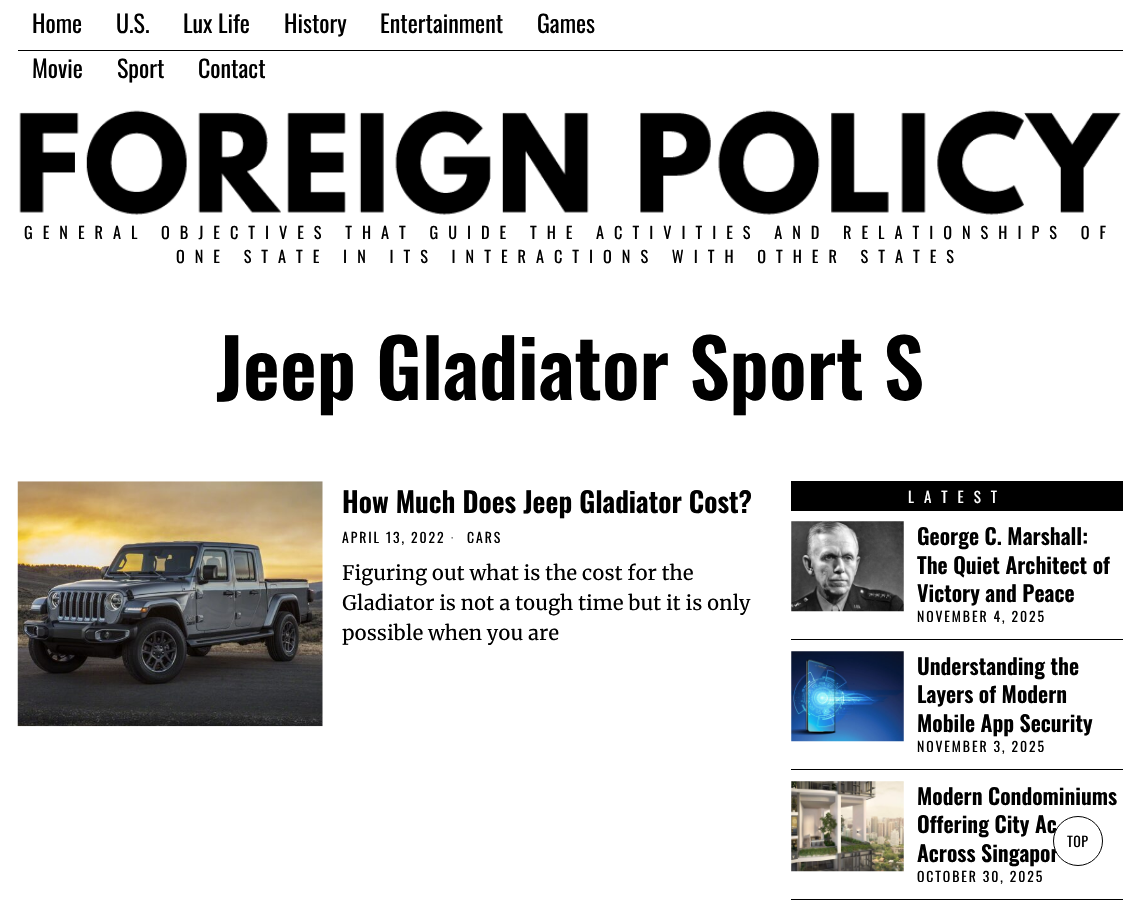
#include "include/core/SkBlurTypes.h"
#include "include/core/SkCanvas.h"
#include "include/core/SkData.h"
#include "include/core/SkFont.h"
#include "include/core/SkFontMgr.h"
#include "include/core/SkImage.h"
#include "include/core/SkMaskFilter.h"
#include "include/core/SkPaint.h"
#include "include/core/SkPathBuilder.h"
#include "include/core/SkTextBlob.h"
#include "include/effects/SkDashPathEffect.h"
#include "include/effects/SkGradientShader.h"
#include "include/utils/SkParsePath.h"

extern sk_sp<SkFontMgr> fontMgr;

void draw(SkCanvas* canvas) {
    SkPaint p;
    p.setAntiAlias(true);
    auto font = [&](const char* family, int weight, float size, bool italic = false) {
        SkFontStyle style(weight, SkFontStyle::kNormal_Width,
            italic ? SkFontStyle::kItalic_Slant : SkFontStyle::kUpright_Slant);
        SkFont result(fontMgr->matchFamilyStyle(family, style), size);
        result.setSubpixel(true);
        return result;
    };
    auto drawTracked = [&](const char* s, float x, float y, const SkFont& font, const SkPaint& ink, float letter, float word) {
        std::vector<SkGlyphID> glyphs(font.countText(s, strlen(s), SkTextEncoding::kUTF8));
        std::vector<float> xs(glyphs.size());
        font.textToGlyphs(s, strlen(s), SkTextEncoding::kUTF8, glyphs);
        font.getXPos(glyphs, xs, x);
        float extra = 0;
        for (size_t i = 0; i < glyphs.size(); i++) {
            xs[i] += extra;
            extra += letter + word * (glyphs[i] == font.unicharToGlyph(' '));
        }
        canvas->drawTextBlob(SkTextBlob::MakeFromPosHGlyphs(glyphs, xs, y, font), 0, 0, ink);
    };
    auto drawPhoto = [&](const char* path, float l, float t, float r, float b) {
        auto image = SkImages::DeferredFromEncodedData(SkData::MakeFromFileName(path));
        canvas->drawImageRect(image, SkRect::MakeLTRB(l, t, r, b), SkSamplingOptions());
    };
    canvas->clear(0xFFFFFFFF);
    p.setColor(0xFF000000);
    canvas->drawRect(SkRect::MakeLTRB(18, 50, 1123, 51), p);
    auto font1 = font("Oswald", 400, 24);
    {
        const struct { const char* s; float x, y; } items[] = {
            {"Home", 32, 33},
            {"U.S.", 116, 33},
            {"Lux Life", 183, 33},
            {"History", 284, 33},
            {"Entertainment", 380, 33},
            {"Games", 537, 33},
            {"Movie", 32, 78},
            {"Sport", 117, 78},
            {"Contact", 198, 78},
        };
        for (auto [s, x, y] : items) {
            canvas->drawString(s, x, y, font1, p);
        }
    }
    drawPhoto("media/1.png", 19, 110, 1121, 215);
    auto font2 = font("Oswald", 400, 16.25f);
    drawTracked("GENERAL OBJECTIVES THAT GUIDE THE ACTIVITIES AND RELATIONSHIPS OF", 24, 239, font2, p, 10, 0);
    drawTracked("ONE STATE IN ITS INTERACTIONS WITH OTHER STATES", 176, 263, font2, p, 10, 0);
    auto font3 = font("Oswald", 600, 80);
    canvas->drawString("Jeep Gladiator Sport S", 216, 400, font3, p);
    drawPhoto("media/2.png", 17, 481, 323, 727);
    auto font4 = font("Oswald", 600, 28);
    canvas->drawString("How Much Does Jeep Gladiator Cost?", 342, 513, font4, p);
    auto font5 = font("Oswald", 400, 13.75f);
    drawTracked("APRIL 13, 2022", 342, 543, font5, p, 1.9f, 0);
    p.setColor(0xFF808080);
    drawTracked("·", 451, 543, font5, p, 1.9f, 0);
    p.setColor(0xFF000000);
    drawTracked("CARS", 467, 543, font5, p, 1.9f, 0);
    auto font6 = font("Merriweather", 400, 20);
    {
        const struct { const char* s; float x, y; } items[] = {
            {"Figuring out what is the cost for the", 342, 580},
            {"Gladiator is not a tough time but it is only", 342, 610},
            {"possible when you are", 342, 640},
        };
        for (auto [s, x, y] : items) {
            canvas->drawString(s, x, y, font6, p);
        }
    }
    canvas->drawRect(SkRect::MakeLTRB(791, 481, 1123, 511), p);
    auto font7 = font("Oswald", 400, 15);
    p.setColor(0xFFFFFFFF);
    drawTracked("LATEST", 908, 503, font7, p, 10, 0);
    drawPhoto("media/3.png", 791, 521, 904, 612);
    auto font8 = font("Oswald", 600, 22);
    p.setColor(0xFF000000);
    {
        const struct { const char* s; float x, y; } items[] = {
            {"George C. Marshall:", 917, 545},
            {"The Quiet Architect of", 917, 574},
            {"Victory and Peace", 917, 602},
        };
        for (auto [s, x, y] : items) {
            canvas->drawString(s, x, y, font8, p);
        }
    }
    drawTracked("NOVEMBER 4, 2025", 917, 622, font5, p, 1.9f, 0);
    canvas->drawRect(SkRect::MakeLTRB(791, 639, 1123, 640), p);
    drawPhoto("media/4.png", 791, 651, 904, 742);
    {
        const struct { const char* s; float x, y; } items[] = {
            {"Understanding the", 917, 675},
            {"Layers of Modern", 917, 703},
            {"Mobile App Security", 917, 732},
        };
        for (auto [s, x, y] : items) {
            canvas->drawString(s, x, y, font8, p);
        }
    }
    drawTracked("NOVEMBER 3, 2025", 917, 752, font5, p, 1.9f, 0);
    canvas->drawRect(SkRect::MakeLTRB(791, 769, 1123, 770), p);
    drawPhoto("media/5.png", 791, 781, 904, 872);
    {
        const struct { const char* s; float x, y; } items[] = {
            {"Modern Condominiums", 917, 805},
            {"Offering City Ac", 917, 833},
            {"Across Singapor", 917, 862},
        };
        for (auto [s, x, y] : items) {
            canvas->drawString(s, x, y, font8, p);
        }
    }
    drawTracked("OCTOBER 30, 2025", 917, 882, font5, p, 1.9f, 0);
    canvas->drawRect(SkRect::MakeLTRB(791, 899, 1123, 900), p);
    p.setColor(0xFFFFFFFF);
    canvas->drawCircle(1078, 841, 24.5f, p);
    p.setStyle(SkPaint::kStroke_Style);
    p.setStrokeWidth(1);
    p.setColor(0xFF000000);
    canvas->drawCircle(1078, 841, 24.5f, p);
    auto font9 = font("Oswald", 400, 14);
    p.setStyle(SkPaint::kFill_Style);
    drawTracked("TOP", 1067, 847, font9, p, 0.5f, 0);
}
